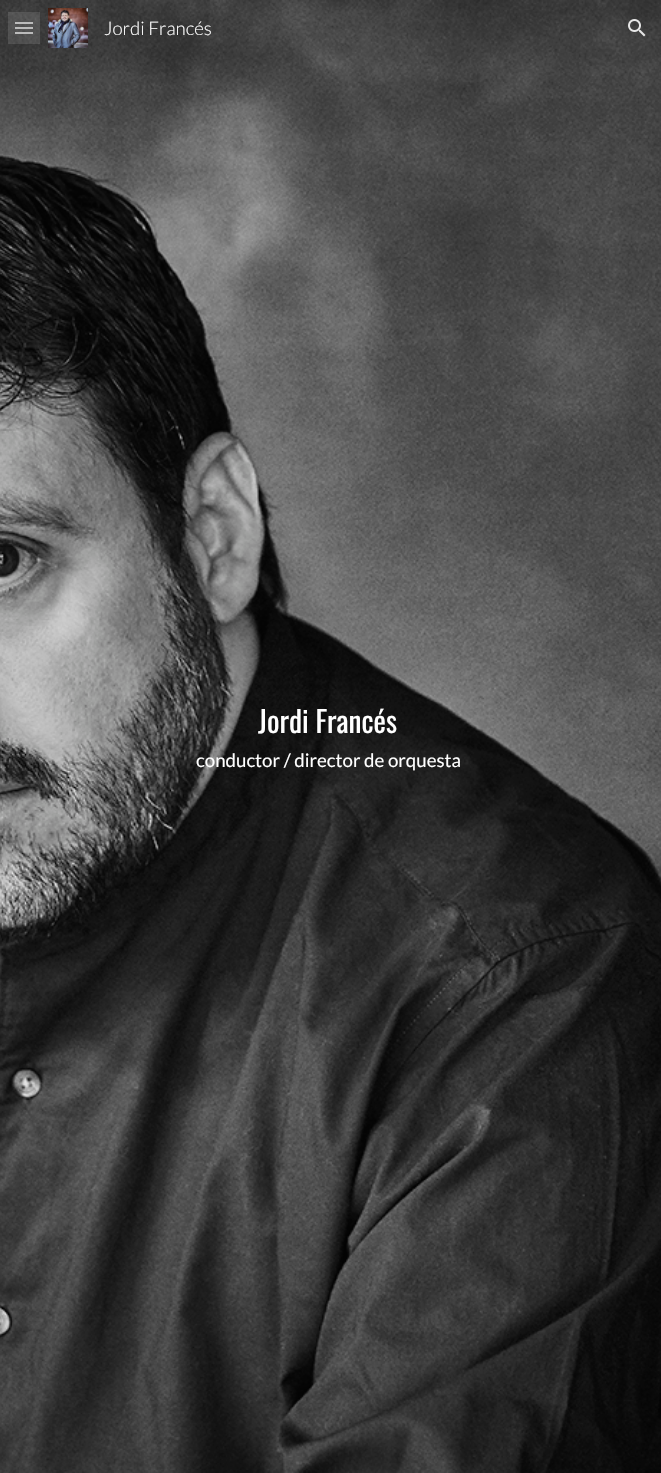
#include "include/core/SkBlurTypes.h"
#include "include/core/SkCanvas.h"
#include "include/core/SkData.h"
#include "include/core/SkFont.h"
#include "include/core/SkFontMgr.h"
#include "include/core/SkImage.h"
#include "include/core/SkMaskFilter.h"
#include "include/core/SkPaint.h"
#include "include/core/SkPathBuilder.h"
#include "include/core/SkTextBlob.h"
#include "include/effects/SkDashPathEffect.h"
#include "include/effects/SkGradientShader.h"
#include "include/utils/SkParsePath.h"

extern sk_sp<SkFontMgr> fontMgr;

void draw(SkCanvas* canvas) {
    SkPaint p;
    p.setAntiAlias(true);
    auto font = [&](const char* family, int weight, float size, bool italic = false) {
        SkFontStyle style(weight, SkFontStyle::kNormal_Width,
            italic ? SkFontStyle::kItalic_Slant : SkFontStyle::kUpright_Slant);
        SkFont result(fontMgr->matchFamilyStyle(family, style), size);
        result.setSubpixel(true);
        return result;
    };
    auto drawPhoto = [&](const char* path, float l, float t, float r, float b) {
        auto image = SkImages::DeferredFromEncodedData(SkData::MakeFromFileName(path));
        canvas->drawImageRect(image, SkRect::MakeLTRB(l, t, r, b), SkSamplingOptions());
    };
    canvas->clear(0xFFFFFFFF);
    drawPhoto("media/3.png", 0, 0, 661, 1473);
    {
        const struct { float l, t, r, b; SkColor color; } items[] = {
            {15, 22, 33, 24, 0xFFB2B2B2},
            {15, 27, 33, 29, 0xFFB2B2B2},
            {15, 32, 33, 34, 0xFFB2B2B2},
            {8, 12, 40, 44, 0x1FFFFFFF},
        };
        for (auto [l, t, r, b, color] : items) {
            p.setColor(color);
            canvas->drawRect(SkRect::MakeLTRB(l, t, r, b), p);
        }
    }
    drawPhoto("media/1.png", 48, 8, 88, 48);
    auto font1 = font("Lato", 300, 18.7f);
    p.setColor(0xFFFFFFFF);
    canvas->drawString("Jordi Francés", 104, 35, font1, p);
    drawPhoto("media/2.png", 628, 19, 646, 37);
    auto font2 = font("Oswald", 400, 29.5f);
    canvas->drawString("Jordi Francés", 258, 733, font2, p);
    auto font3 = font("Lato", 400, 18.7f);
    canvas->drawString("conductor / director de orquesta", 196, 767, font3, p);
}
